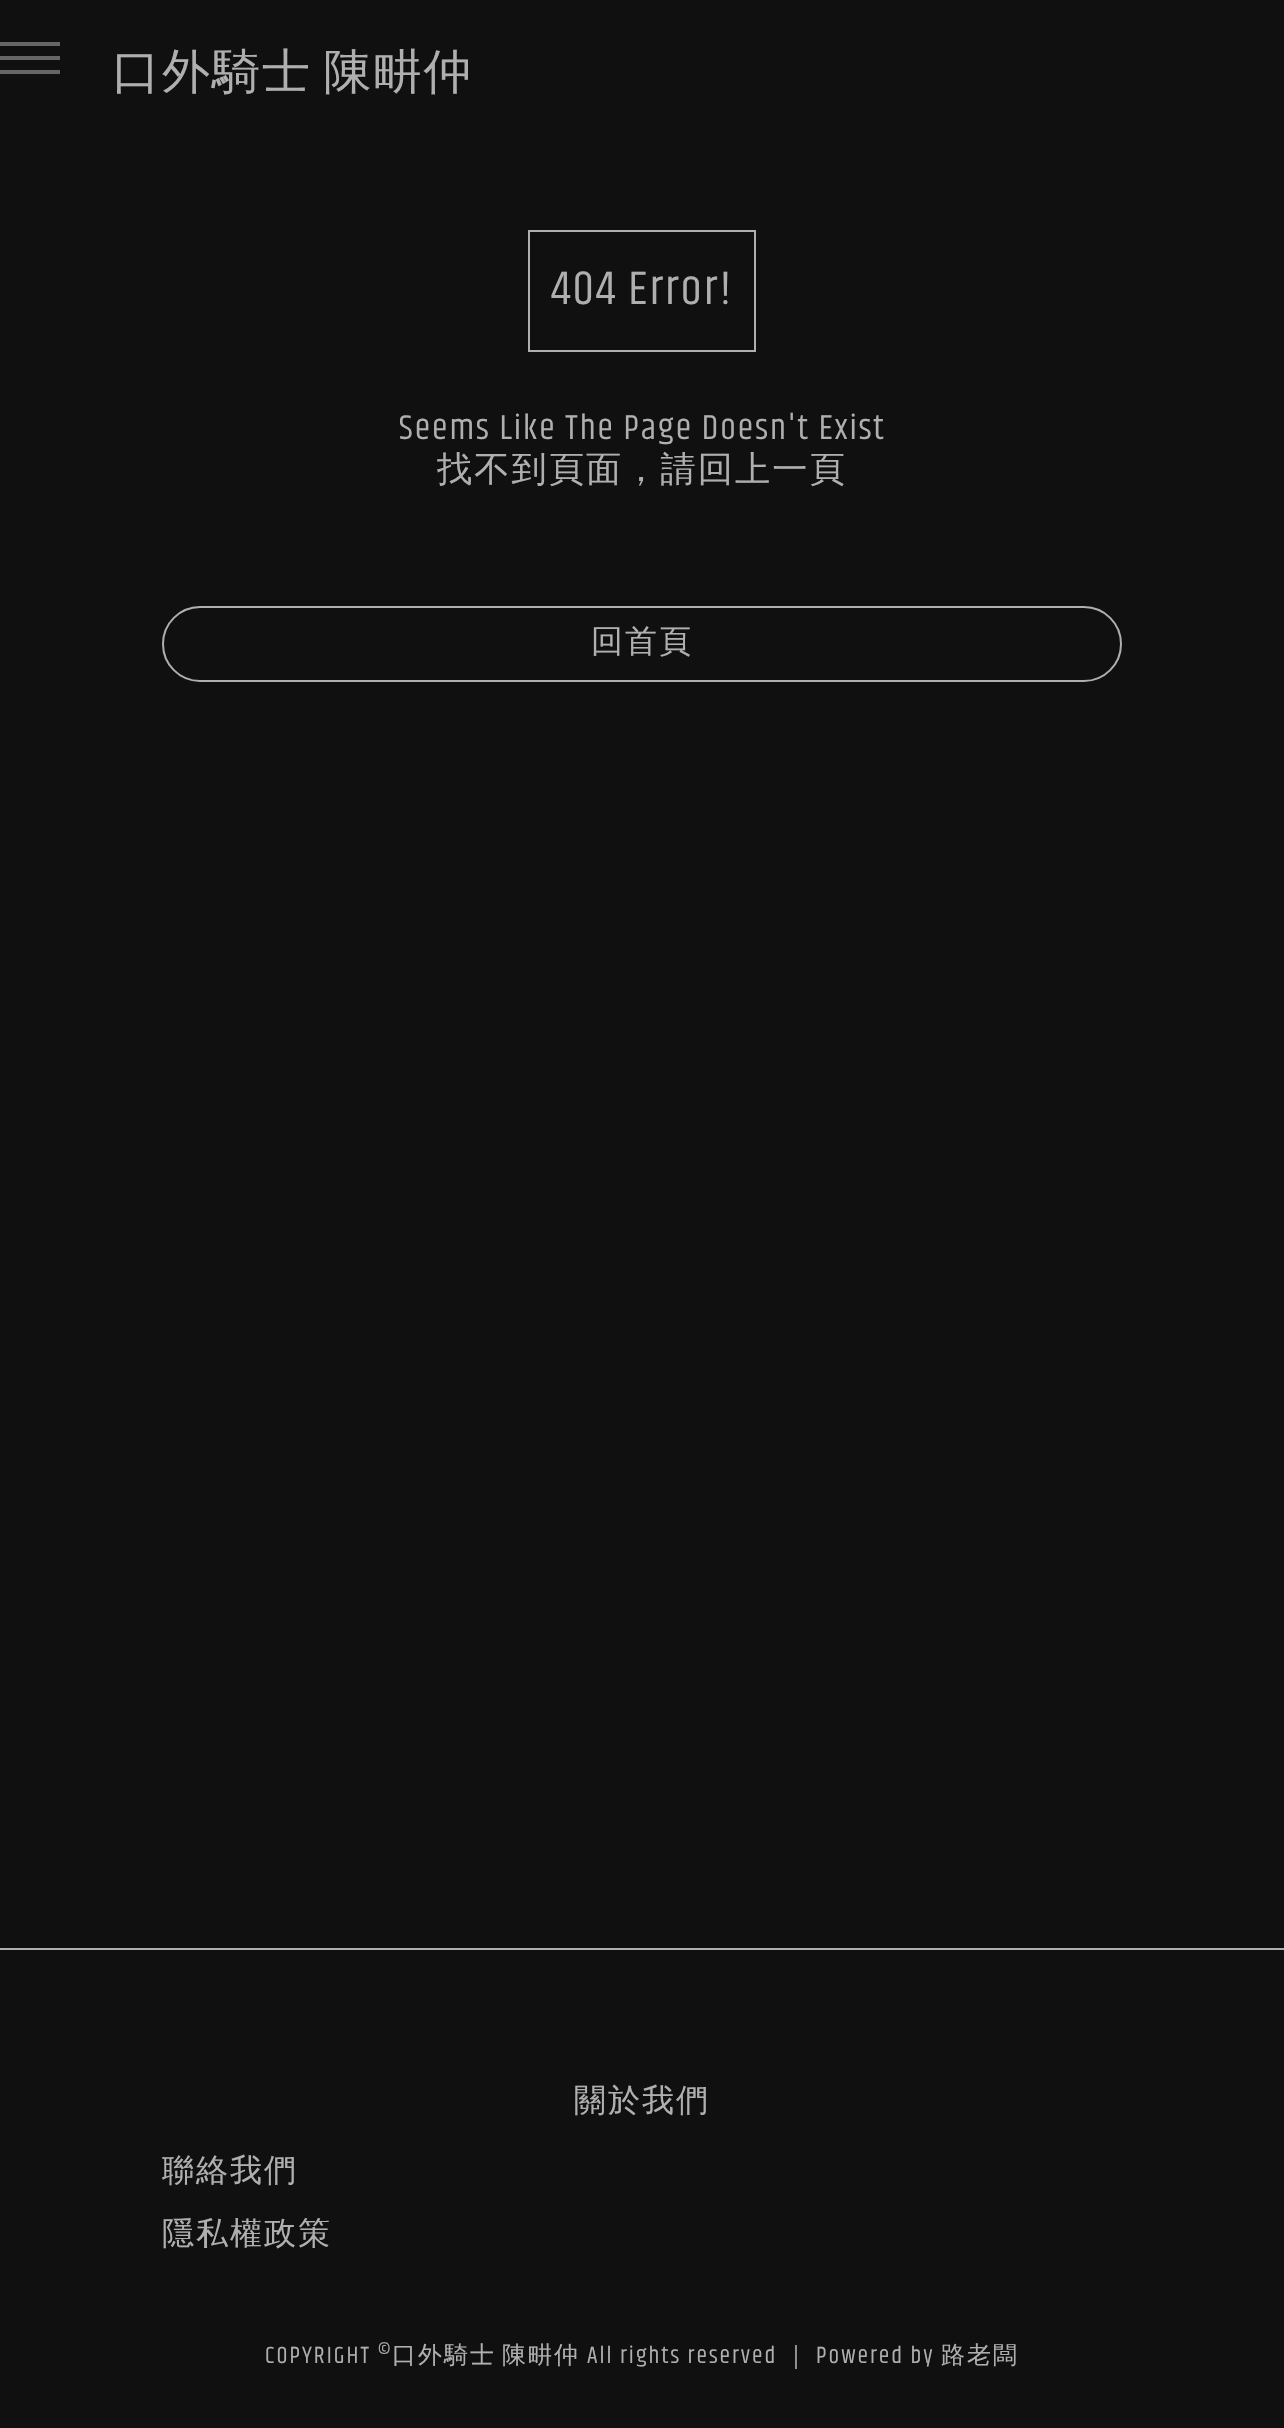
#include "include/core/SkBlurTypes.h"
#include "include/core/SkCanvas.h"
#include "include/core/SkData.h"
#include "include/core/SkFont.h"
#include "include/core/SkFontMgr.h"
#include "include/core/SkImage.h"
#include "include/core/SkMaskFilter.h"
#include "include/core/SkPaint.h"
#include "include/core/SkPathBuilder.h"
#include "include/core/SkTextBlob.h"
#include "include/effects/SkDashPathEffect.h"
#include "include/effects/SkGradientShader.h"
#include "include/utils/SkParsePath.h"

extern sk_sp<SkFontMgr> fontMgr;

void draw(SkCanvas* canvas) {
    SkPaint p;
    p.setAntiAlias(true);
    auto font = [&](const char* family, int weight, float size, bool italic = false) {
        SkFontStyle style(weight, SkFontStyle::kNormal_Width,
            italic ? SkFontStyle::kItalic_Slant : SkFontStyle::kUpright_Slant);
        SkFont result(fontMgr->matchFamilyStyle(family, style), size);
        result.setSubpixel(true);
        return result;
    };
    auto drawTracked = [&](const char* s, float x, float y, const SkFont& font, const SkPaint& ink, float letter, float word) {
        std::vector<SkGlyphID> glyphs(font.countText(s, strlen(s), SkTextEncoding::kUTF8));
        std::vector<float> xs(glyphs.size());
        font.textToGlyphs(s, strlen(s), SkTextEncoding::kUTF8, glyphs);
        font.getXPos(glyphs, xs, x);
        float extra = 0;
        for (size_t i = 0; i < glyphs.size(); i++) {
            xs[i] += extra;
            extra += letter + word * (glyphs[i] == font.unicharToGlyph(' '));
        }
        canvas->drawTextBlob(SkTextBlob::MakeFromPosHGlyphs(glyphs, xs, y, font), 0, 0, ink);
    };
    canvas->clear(0xFF101010);
    {
        const struct { float l, t, r, b; SkColor color; } items[] = {
            {0, 42, 60, 46, 0xFF666666},
            {0, 56, 60, 60, 0xFF666666},
            {0, 70, 60, 74, 0xFF666666},
        };
        for (auto [l, t, r, b, color] : items) {
            p.setColor(color);
            canvas->drawRect(SkRect::MakeLTRB(l, t, r, b), p);
        }
    }
    auto font1 = font("WenQuanYi Zen Hei", 500, 48);
    p.setColor(0xFFAFAFAF);
    drawTracked("口外騎士 陳畊仲", 112, 88, font1, p, 2, -5);
    p.setStyle(SkPaint::kStroke_Style);
    p.setStrokeWidth(2);
    canvas->drawRect(SkRect::MakeLTRB(529, 231, 755, 351), p);
    auto font2 = font("Khand", 400, 48);
    p.setStyle(SkPaint::kFill_Style);
    drawTracked("404 Error!", 551, 304, font2, p, 2, 0);
    auto font3 = font("Khand", 400, 35.25f);
    drawTracked("Seems Like The Page Doesn't Exist", 399, 439, font3, p, 2, 0);
    auto font4 = font("WenQuanYi Zen Hei", 500, 35.25f);
    drawTracked("找不到頁面，請回上一頁", 437, 481, font4, p, 2, 0);
    p.setStyle(SkPaint::kStroke_Style);
    canvas->drawRoundRect(SkRect::MakeLTRB(163, 607, 1121, 681), 37, 37, p);
    auto font5 = font("WenQuanYi Zen Hei", 500, 32);
    p.setStyle(SkPaint::kFill_Style);
    drawTracked("回首頁", 591, 652, font5, p, 2, 0);
    canvas->drawRect(SkRect::MakeLTRB(0, 1948, 1284, 1950), p);
    {
        const struct { const char* s; float x, y; } items[] = {
            {"關於我們", 574, 2111},
            {"聯絡我們", 162, 2181},
            {"隱私權政策", 162, 2244},
        };
        for (auto [s, x, y] : items) {
            drawTracked(s, x, y, font5, p, 2, 0);
        }
    }
    auto font6 = font("Khand", 400, 24);
    drawTracked("COPYRIGHT", 265, 2363, font6, p, 2, 0);
    auto font7 = font("Khand", 400, 18);
    drawTracked("©", 378, 2354, font7, p, 2, 0);
    auto font8 = font("WenQuanYi Zen Hei", 500, 24);
    drawTracked("口外騎士", 392, 2363, font8, p, 2, 0);
    drawTracked("陳畊仲", 502, 2363, font8, p, 2, 0);
    drawTracked("All rights reserved", 587, 2363, font6, p, 2, 0);
    drawTracked("｜", 784, 2363, font8, p, 2, 0);
    drawTracked("Powered by", 816, 2363, font6, p, 2, 0);
    drawTracked("路老闆", 941, 2363, font8, p, 2, 0);
}
